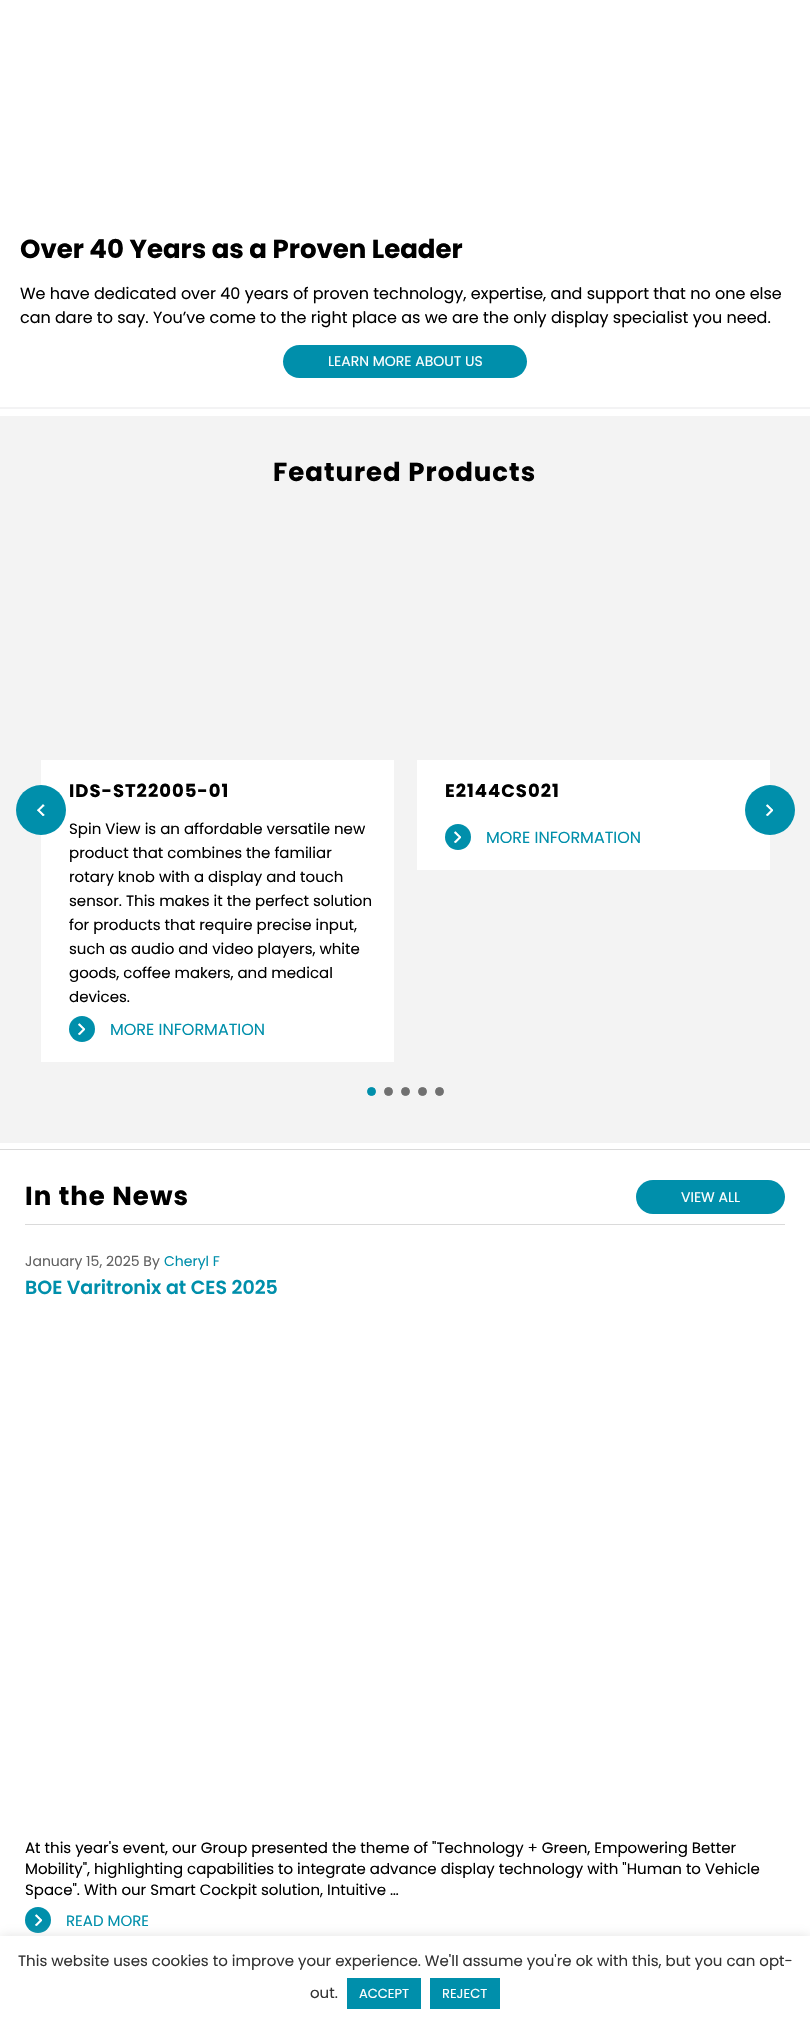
#include "include/core/SkBlurTypes.h"
#include "include/core/SkCanvas.h"
#include "include/core/SkData.h"
#include "include/core/SkFont.h"
#include "include/core/SkFontMgr.h"
#include "include/core/SkImage.h"
#include "include/core/SkMaskFilter.h"
#include "include/core/SkPaint.h"
#include "include/core/SkPathBuilder.h"
#include "include/core/SkTextBlob.h"
#include "include/effects/SkDashPathEffect.h"
#include "include/effects/SkGradientShader.h"
#include "include/utils/SkParsePath.h"

extern sk_sp<SkFontMgr> fontMgr;

void draw(SkCanvas* canvas) {
    SkPaint p;
    p.setAntiAlias(true);
    auto font = [&](const char* family, int weight, float size, bool italic = false) {
        SkFontStyle style(weight, SkFontStyle::kNormal_Width,
            italic ? SkFontStyle::kItalic_Slant : SkFontStyle::kUpright_Slant);
        SkFont result(fontMgr->matchFamilyStyle(family, style), size);
        result.setSubpixel(true);
        return result;
    };
    auto drawTracked = [&](const char* s, float x, float y, const SkFont& font, const SkPaint& ink, float letter, float word) {
        std::vector<SkGlyphID> glyphs(font.countText(s, strlen(s), SkTextEncoding::kUTF8));
        std::vector<float> xs(glyphs.size());
        font.textToGlyphs(s, strlen(s), SkTextEncoding::kUTF8, glyphs);
        font.getXPos(glyphs, xs, x);
        float extra = 0;
        for (size_t i = 0; i < glyphs.size(); i++) {
            xs[i] += extra;
            extra += letter + word * (glyphs[i] == font.unicharToGlyph(' '));
        }
        canvas->drawTextBlob(SkTextBlob::MakeFromPosHGlyphs(glyphs, xs, y, font), 0, 0, ink);
    };
    auto drawPhoto = [&](const char* path, float l, float t, float r, float b) {
        auto image = SkImages::DeferredFromEncodedData(SkData::MakeFromFileName(path));
        canvas->drawImageRect(image, SkRect::MakeLTRB(l, t, r, b), SkSamplingOptions());
    };
    canvas->clear(0xFFFFFFFF);
    p.setColor(0xFFF3F3F4);
    canvas->drawRect(SkRect::MakeLTRB(0, 407, 810, 409), p);
    auto font1 = font("Poppins", 700, 26);
    p.setColor(0xFF000000);
    canvas->drawString("Over 40 Years as a Proven Leader", 20, 258, font1, p);
    auto font2 = font("Poppins", 400, 16);
    canvas->drawString("We have dedicated over 40 years of proven technology, expertise, and support that no one else", 20, 299, font2, p);
    canvas->drawString("can dare to say. You’ve come to the right place as we are the only display specialist you need.", 20, 323, font2, p);
    p.setColor(0xFF008FAB);
    canvas->drawRoundRect(SkRect::MakeLTRB(283, 345, 527, 378), 16.5f, 16.5f, p);
    auto font3 = font("Poppins", 400, 14);
    p.setColor(0xFFFFFFFF);
    canvas->drawString("LEARN MORE ABOUT US", 328, 366, font3, p);
    p.setColor(0xFFF3F3F3);
    canvas->drawRect(SkRect::MakeLTRB(0, 416, 810, 1143), p);
    p.setColor(0xFF000000);
    drawTracked("Featured Products", 273, 481, font1, p, 1, 0);
    p.setColor(0xFFFFFFFF);
    canvas->drawRect(SkRect::MakeLTRB(41, 760, 394, 1062), p);
    auto font4 = font("Poppins", 700, 18);
    p.setColor(0xFF000000);
    drawTracked("IDS-ST22005-01", 69, 797, font4, p, 1, 0);
    auto font5 = font("Poppins", 400, 15);
    {
        const struct { const char* s; float x, y; } items[] = {
            {"Spin View is an affordable versatile new", 69, 834},
            {"product that combines the familiar", 69, 858},
            {"rotary knob with a display and touch", 69, 882},
            {"sensor. This makes it the perfect solution", 69, 906},
            {"for products that require precise input,", 69, 930},
            {"such as audio and video players, white", 69, 954},
            {"goods, coffee makers, and medical", 69, 978},
            {"devices.", 69, 1002},
        };
        for (auto [s, x, y] : items) {
            canvas->drawString(s, x, y, font5, p);
        }
    }
    p.setColor(0xFF008FAB);
    canvas->drawCircle(82, 1029, 13, p);
    drawPhoto("media/1.png", 78, 1023, 85, 1035);
    canvas->drawString("MORE INFORMATION", 110, 1035, font2, p);
    p.setColor(0xFFFFFFFF);
    canvas->drawRect(SkRect::MakeLTRB(417, 760, 770, 870), p);
    p.setColor(0xFF000000);
    drawTracked("E2144CS021", 445, 797, font4, p, 1, 0);
    p.setColor(0xFF008FAB);
    canvas->drawCircle(458, 837, 13, p);
    drawPhoto("media/1.png", 454, 831, 461, 843);
    canvas->drawString("MORE INFORMATION", 486, 843, font2, p);
    canvas->drawCircle(41, 810, 25, p);
    drawPhoto("media/2.png", 37, 804, 45, 816);
    canvas->drawCircle(770, 810, 25, p);
    drawPhoto("media/1.png", 766, 804, 773, 816);
    canvas->drawCircle(371.5f, 1091.5f, 4, p);
    p.setStyle(SkPaint::kStroke_Style);
    p.setStrokeWidth(1);
    canvas->drawCircle(371.5f, 1091.5f, 4, p);
    p.setStyle(SkPaint::kFill_Style);
    p.setColor(0xFF707070);
    canvas->drawCircle(388.5f, 1091.5f, 4, p);
    p.setStyle(SkPaint::kStroke_Style);
    canvas->drawCircle(388.5f, 1091.5f, 4, p);
    p.setStyle(SkPaint::kFill_Style);
    canvas->drawCircle(405.5f, 1091.5f, 4, p);
    p.setStyle(SkPaint::kStroke_Style);
    canvas->drawCircle(405.5f, 1091.5f, 4, p);
    p.setStyle(SkPaint::kFill_Style);
    canvas->drawCircle(422.5f, 1091.5f, 4, p);
    p.setStyle(SkPaint::kStroke_Style);
    canvas->drawCircle(422.5f, 1091.5f, 4, p);
    p.setStyle(SkPaint::kFill_Style);
    canvas->drawCircle(439.5f, 1091.5f, 4, p);
    p.setStyle(SkPaint::kStroke_Style);
    canvas->drawCircle(439.5f, 1091.5f, 4, p);
    p.setStyle(SkPaint::kFill_Style);
    p.setColor(0xFFDADADA);
    canvas->drawRect(SkRect::MakeLTRB(0, 1149, 810, 1150), p);
    canvas->drawRect(SkRect::MakeLTRB(25, 1224, 785, 1225), p);
    p.setColor(0xFF000000);
    drawTracked("In the News", 25, 1205, font1, p, 1, 0);
    p.setColor(0xFF008FAB);
    canvas->drawRoundRect(SkRect::MakeLTRB(636, 1180, 785, 1214), 17, 17, p);
    p.setColor(0xFFFFFFFF);
    canvas->drawString("VIEW ALL", 681, 1202, font3, p);
    p.setColor(0xFF616161);
    canvas->drawString("January 15, 2025 By", 25, 1266, font3, p);
    p.setColor(0xFF008FAB);
    canvas->drawString("Cheryl F", 164, 1266, font3, p);
    auto font6 = font("Poppins", 600, 19);
    canvas->drawString("BOE Varitronix at CES 2025", 25, 1294, font6, p);
    p.setColor(0xFF000000);
    {
        const struct { const char* s; float x, y; } items[] = {
            {"At this year's event, our Group presented the theme of \"Technology + Green, Empowering Better", 25, 1853},
            {"Mobility\", highlighting capabilities to integrate advance display technology with \"Human to Vehicle", 25, 1874},
            {"Space\". With our Smart Cockpit solution, Intuitive …", 25, 1895},
        };
        for (auto [s, x, y] : items) {
            canvas->drawString(s, x, y, font5, p);
        }
    }
    p.setColor(0xFF008FAB);
    canvas->drawCircle(38, 1920, 13, p);
    drawPhoto("media/1.png", 35, 1914, 42, 1926);
    canvas->drawString("READ MORE", 66, 1926, font5, p);
    p.setColor(0x4DACABAB);
    p.setMaskFilter(SkMaskFilter::MakeBlur(kNormal_SkBlurStyle, 5));
    canvas->drawRect(SkRect::MakeLTRB(0, 1935, 810, 2020), p);
    p.setMaskFilter(nullptr);
    p.setColor(0xFFFFFFFF);
    canvas->drawRect(SkRect::MakeLTRB(0, 1936, 810, 2021), p);
    p.setColor(0xFF333333);
    canvas->drawString("This website uses cookies to improve your experience. We'll assume you're ok with this, but you can opt-", 18, 1966, font5, p);
    canvas->drawString("out.", 310, 1998, font5, p);
    p.setColor(0xFF008FAB);
    canvas->drawRect(SkRect::MakeLTRB(347, 1978, 421, 2009), p);
    auto font7 = font("Poppins", 400, 13);
    p.setColor(0xFFFFFFFF);
    canvas->drawString("ACCEPT", 359, 1998, font7, p);
    p.setColor(0xFF008FAB);
    canvas->drawRect(SkRect::MakeLTRB(430, 1978, 500, 2009), p);
    p.setColor(0xFFFFFFFF);
    canvas->drawString("REJECT", 442, 1998, font7, p);
}
